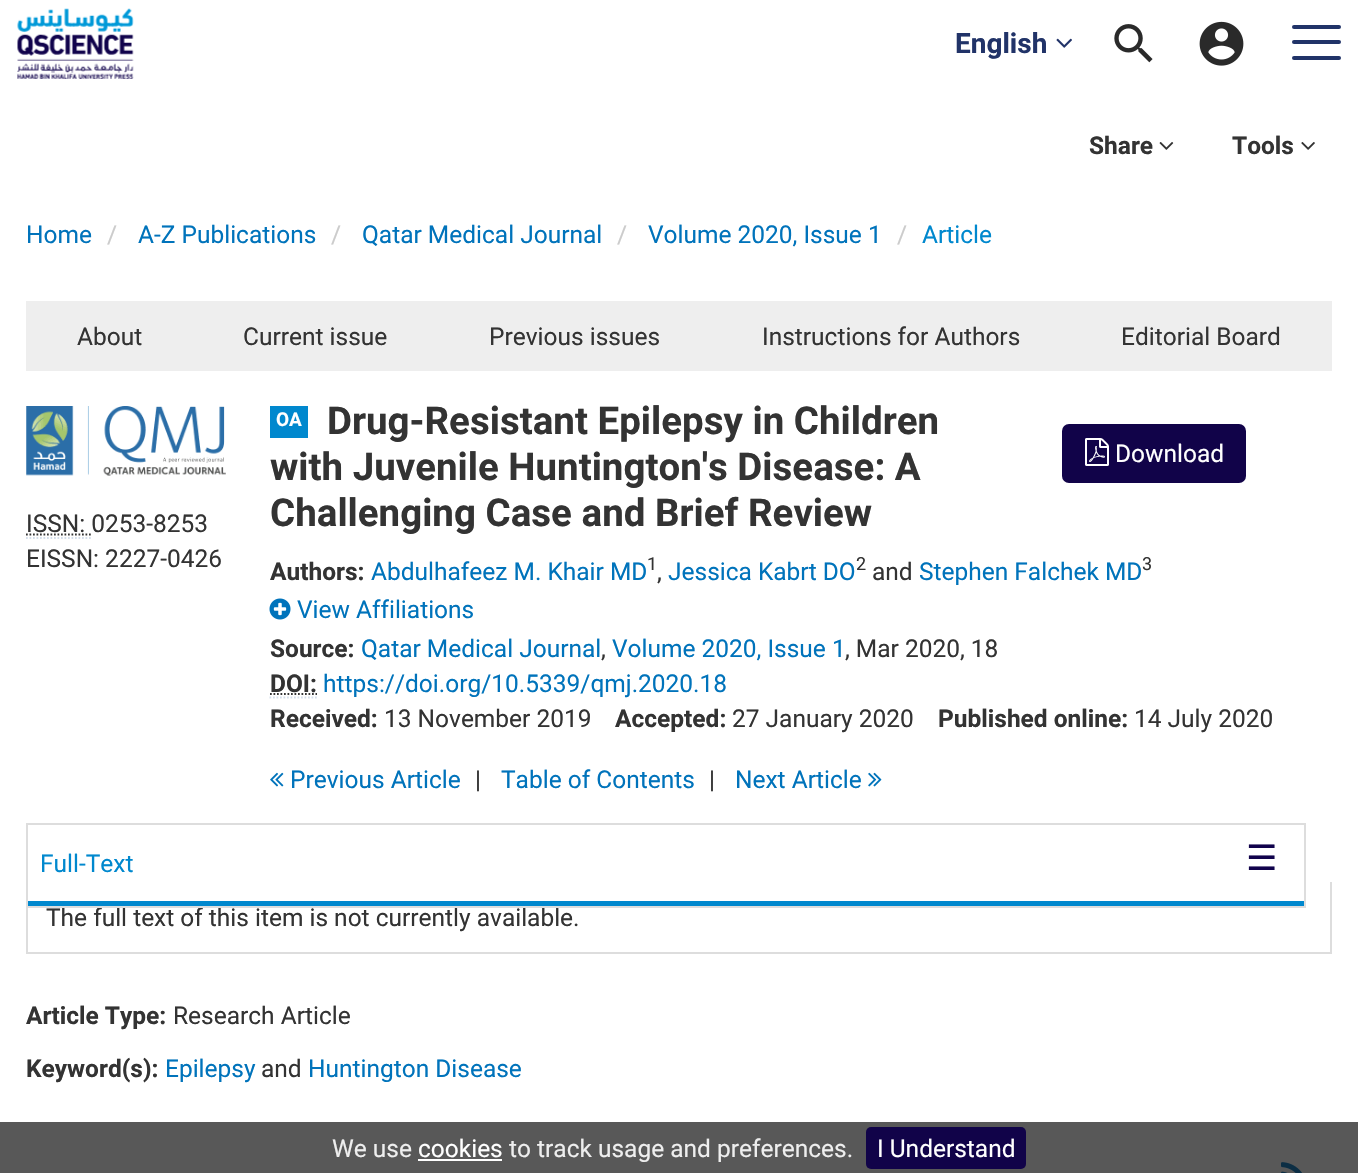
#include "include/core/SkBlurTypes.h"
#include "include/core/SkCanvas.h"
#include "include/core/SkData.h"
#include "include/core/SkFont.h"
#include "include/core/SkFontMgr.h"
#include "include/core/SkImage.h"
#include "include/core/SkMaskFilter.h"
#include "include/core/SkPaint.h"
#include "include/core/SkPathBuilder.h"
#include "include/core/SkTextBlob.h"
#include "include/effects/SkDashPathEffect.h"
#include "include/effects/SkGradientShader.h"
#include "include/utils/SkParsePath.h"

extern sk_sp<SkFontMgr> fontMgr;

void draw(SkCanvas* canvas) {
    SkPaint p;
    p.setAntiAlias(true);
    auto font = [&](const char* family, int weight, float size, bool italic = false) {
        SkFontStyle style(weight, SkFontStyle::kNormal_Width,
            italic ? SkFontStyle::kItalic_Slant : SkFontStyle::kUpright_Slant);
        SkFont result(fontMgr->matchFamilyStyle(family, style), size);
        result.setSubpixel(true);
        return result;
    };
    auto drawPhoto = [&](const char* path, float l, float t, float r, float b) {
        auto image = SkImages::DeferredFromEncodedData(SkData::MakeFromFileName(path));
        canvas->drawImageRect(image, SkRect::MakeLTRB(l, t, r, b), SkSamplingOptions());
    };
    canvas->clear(0xFFFFFFFF);
    p.setColor(0xFF585858);
    canvas->drawRect(SkRect::MakeLTRB(0, 1122, 1358, 1173), p);
    drawPhoto("media/1.png", 17, 8, 134, 79);
    auto font1 = font("Roboto", 700, 28);
    p.setColor(0xFF213368);
    canvas->drawString("English", 955, 53, font1, p);
    drawPhoto("media/2.png", 1056, 38, 1072, 48);
    drawPhoto("media/3.png", 1114, 24, 1153, 63);
    drawPhoto("media/4.png", 1199, 21, 1244, 66);
    canvas->drawRoundRect(SkRect::MakeLTRB(1292, 25, 1341, 29), 2, 2, p);
    canvas->drawRoundRect(SkRect::MakeLTRB(1292, 40, 1341, 44), 2, 2, p);
    canvas->drawRoundRect(SkRect::MakeLTRB(1292, 56, 1341, 60), 2, 2, p);
    auto font2 = font("Roboto", 700, 24.5f);
    p.setColor(0xFF333333);
    canvas->drawString("Share", 1089, 154, font2, p);
    drawPhoto("media/5.png", 1159, 142, 1174, 150);
    canvas->drawString("Tools", 1232, 154, font2, p);
    drawPhoto("media/6.png", 1301, 142, 1315, 150);
    auto font3 = font("Roboto", 400, 24.5f);
    p.setColor(0xFF0073BB);
    canvas->drawString("Home", 26, 243, font3, p);
    p.setColor(0xFFCCCCCC);
    canvas->drawString("/", 107, 243, font3, p);
    p.setColor(0xFF0073BB);
    canvas->drawString("A-Z Publications", 138, 243, font3, p);
    p.setColor(0xFFCCCCCC);
    canvas->drawString("/", 331, 243, font3, p);
    p.setColor(0xFF0073BB);
    canvas->drawString("Qatar Medical Journal", 362, 243, font3, p);
    p.setColor(0xFFCCCCCC);
    canvas->drawString("/", 617, 243, font3, p);
    p.setColor(0xFF0073BB);
    canvas->drawString("Volume 2020, Issue 1", 648, 243, font3, p);
    p.setColor(0xFFCCCCCC);
    canvas->drawString("/", 897, 243, font3, p);
    p.setColor(0xFF0088CE);
    canvas->drawString("Article", 922, 243, font3, p);
    p.setColor(0xFFEEEEEE);
    canvas->drawRect(SkRect::MakeLTRB(26, 301, 1332, 371), p);
    p.setColor(0xFF333333);
    {
        const struct { const char* s; float x, y; } items[] = {
            {"About", 77, 345},
            {"Current issue", 243, 345},
            {"Previous issues", 489, 345},
            {"Instructions for Authors", 762, 345},
            {"Editorial Board", 1121, 345},
        };
        for (auto [s, x, y] : items) {
            canvas->drawString(s, x, y, font3, p);
        }
    }
    drawPhoto("media/7.png", 26, 406, 226, 476);
    canvas->drawString("ISSN: 0253-8253", 26, 532, font3, p);
    p.setStyle(SkPaint::kStroke_Style);
    p.setStrokeWidth(1.8f);
    p.setColor(0xFFD5DFEC);
    p.setPathEffect(SkDashPathEffect::Make({{1.75f, 1.75f}}, 0));
    canvas->drawPath(SkPathBuilder().moveTo(26, 538).lineTo(91, 538).detach(), p);
    p.setPathEffect(nullptr);
    p.setColor(0xFF333333);
    p.setPathEffect(SkDashPathEffect::Make({{1.75f, 1.75f}}, 0));
    canvas->drawPath(SkPathBuilder().moveTo(26, 534.5f).lineTo(91.5f, 534.5f).detach(), p);
    p.setPathEffect(nullptr);
    p.setStyle(SkPaint::kFill_Style);
    canvas->drawString("EISSN: 2227-0426", 26, 567, font3, p);
    p.setColor(0xFF0088CE);
    canvas->drawRect(SkRect::MakeLTRB(270, 406, 308, 438), p);
    auto font4 = font("Roboto", 700, 19);
    p.setColor(0xFFFFFFFF);
    canvas->drawString("OA", 276, 426, font4, p);
    auto font5 = font("Roboto", 700, 38.5f);
    p.setColor(0xFF333333);
    {
        const struct { const char* s; float x, y; } items[] = {
            {"Drug-Resistant Epilepsy in Children", 327, 434},
            {"with Juvenile Huntington's Disease: A", 270, 480},
            {"Challenging Case and Brief Review", 270, 526},
        };
        for (auto [s, x, y] : items) {
            canvas->drawString(s, x, y, font5, p);
        }
    }
    canvas->drawString("Authors:", 270, 580, font2, p);
    p.setColor(0xFF0073BB);
    canvas->drawString("Abdulhafeez M. Khair MD", 371, 580, font3, p);
    auto font6 = font("Roboto", 400, 18);
    p.setColor(0xFF333333);
    canvas->drawString("1", 647, 570, font6, p);
    canvas->drawString(",", 657, 580, font3, p);
    p.setColor(0xFF0073BB);
    canvas->drawString("Jessica Kabrt DO", 668, 580, font3, p);
    p.setColor(0xFF333333);
    canvas->drawString("2", 856, 570, font6, p);
    canvas->drawString("and", 872, 580, font3, p);
    p.setColor(0xFF0073BB);
    canvas->drawString("Stephen Falchek MD", 919, 580, font3, p);
    p.setColor(0xFF333333);
    canvas->drawString("3", 1142, 570, font6, p);
    drawPhoto("media/8.png", 269, 598, 291, 620);
    p.setColor(0xFF0073BB);
    canvas->drawString("View Affiliations", 297, 618, font3, p);
    p.setColor(0xFF333333);
    canvas->drawString("Source:", 270, 657, font2, p);
    p.setColor(0xFF0073BB);
    canvas->drawString("Qatar Medical Journal", 361, 657, font3, p);
    p.setColor(0xFF333333);
    canvas->drawString(",", 601, 657, font3, p);
    p.setColor(0xFF0073BB);
    canvas->drawString("Volume 2020, Issue 1", 612, 657, font3, p);
    p.setColor(0xFF333333);
    canvas->drawString(", Mar 2020, 18", 845, 657, font3, p);
    canvas->drawString("DOI:", 270, 692, font2, p);
    p.setStyle(SkPaint::kStroke_Style);
    p.setColor(0xFFD5DFEC);
    p.setPathEffect(SkDashPathEffect::Make({{1.75f, 1.75f}}, 0));
    canvas->drawPath(SkPathBuilder().moveTo(269.5f, 697.5f).lineTo(317, 697.5f).detach(), p);
    p.setPathEffect(nullptr);
    p.setColor(0xFF333333);
    p.setPathEffect(SkDashPathEffect::Make({{1.75f, 1.75f}}, 0));
    canvas->drawPath(SkPathBuilder().moveTo(270, 694).lineTo(317, 694).detach(), p);
    p.setPathEffect(nullptr);
    p.setStyle(SkPaint::kFill_Style);
    p.setColor(0xFF0073BB);
    canvas->drawString("https://doi.org/10.5339/qmj.2020.18", 323, 692, font3, p);
    p.setColor(0xFF333333);
    canvas->drawString("Received:", 270, 727, font2, p);
    canvas->drawString("13 November 2019", 384, 727, font3, p);
    canvas->drawString("Accepted:", 615, 727, font2, p);
    canvas->drawString("27 January 2020", 732, 727, font3, p);
    canvas->drawString("Published online:", 938, 727, font2, p);
    canvas->drawString("14 July 2020", 1134, 727, font3, p);
    p.setColor(0xFF110349);
    canvas->drawRoundRect(SkRect::MakeLTRB(1062, 424, 1246, 483), 7, 7, p);
    drawPhoto("media/9.png", 1085, 438, 1109, 466);
    p.setColor(0xFFFFFFFF);
    canvas->drawString("Download", 1115, 462, font3, p);
    drawPhoto("media/10.png", 270, 772, 284, 787);
    p.setColor(0xFF0073BB);
    canvas->drawString("Previous Article", 290, 788, font3, p);
    p.setColor(0xFF333333);
    canvas->drawString("|", 475, 788, font3, p);
    p.setColor(0xFF0073BB);
    canvas->drawString("Table of Contents", 501, 788, font3, p);
    p.setColor(0xFF333333);
    canvas->drawString("|", 709, 788, font3, p);
    p.setColor(0xFF0073BB);
    canvas->drawString("Next Article", 735, 788, font3, p);
    drawPhoto("media/11.png", 868, 772, 882, 787);
    p.setColor(0xFF333333);
    canvas->drawString("The full text of this item is not currently available.", 46, 926, font3, p);
    p.setStyle(SkPaint::kStroke_Style);
    p.setStrokeWidth(2);
    p.setColor(0xFFDDDDDD);
    canvas->drawRect(SkRect::MakeLTRB(27, 824, 1305, 907), p);
    p.setStyle(SkPaint::kFill_Style);
    p.setColor(0xFF0088CE);
    canvas->drawRect(SkRect::MakeLTRB(28, 901, 1304, 906), p);
    canvas->drawString("Full-Text", 40, 872, font3, p);
    auto font7 = font("DejaVu Sans", 400, 35);
    p.setColor(0xFF11034C);
    canvas->drawString("☰", 1246, 870, font7, p);
    {
        const struct { float l, t, r, b; SkColor color; } items[] = {
            {1330, 882, 1332, 954, 0xFFDDDDDD},
            {26, 952, 1332, 954, 0xFFDDDDDD},
            {26, 908, 28, 954, 0xFFDDDDDD},
        };
        for (auto [l, t, r, b, color] : items) {
            p.setColor(color);
            canvas->drawRect(SkRect::MakeLTRB(l, t, r, b), p);
        }
    }
    p.setColor(0xFF333333);
    canvas->drawString("Article Type:", 26, 1024, font2, p);
    canvas->drawString("Research Article", 173, 1024, font3, p);
    canvas->drawString("Keyword(s):", 26, 1077, font2, p);
    p.setColor(0xFF0073BB);
    canvas->drawString("Epilepsy", 165, 1077, font3, p);
    p.setColor(0xFF333333);
    canvas->drawString("and", 261, 1077, font3, p);
    p.setColor(0xFF0073BB);
    canvas->drawString("Huntington Disease", 308, 1077, font3, p);
    drawPhoto("media/12.png", 1281, 1162, 1302, 1173);
    p.setColor(0xFFEEEEEE);
    canvas->drawString("We use", 332, 1157, font3, p);
    p.setColor(0xFFFFFFFF);
    canvas->drawString("cookies", 418, 1157, font3, p);
    canvas->drawRect(SkRect::MakeLTRB(418, 1159, 502, 1161), p);
    p.setColor(0xFFEEEEEE);
    canvas->drawString("to track usage and preferences.", 509, 1157, font3, p);
    p.setColor(0xFF110349);
    canvas->drawRoundRect(SkRect::MakeLTRB(866, 1127, 1026, 1169), 5, 5, p);
    p.setColor(0xFFFFFFFF);
    canvas->drawString("I Understand", 877, 1157, font3, p);
}
